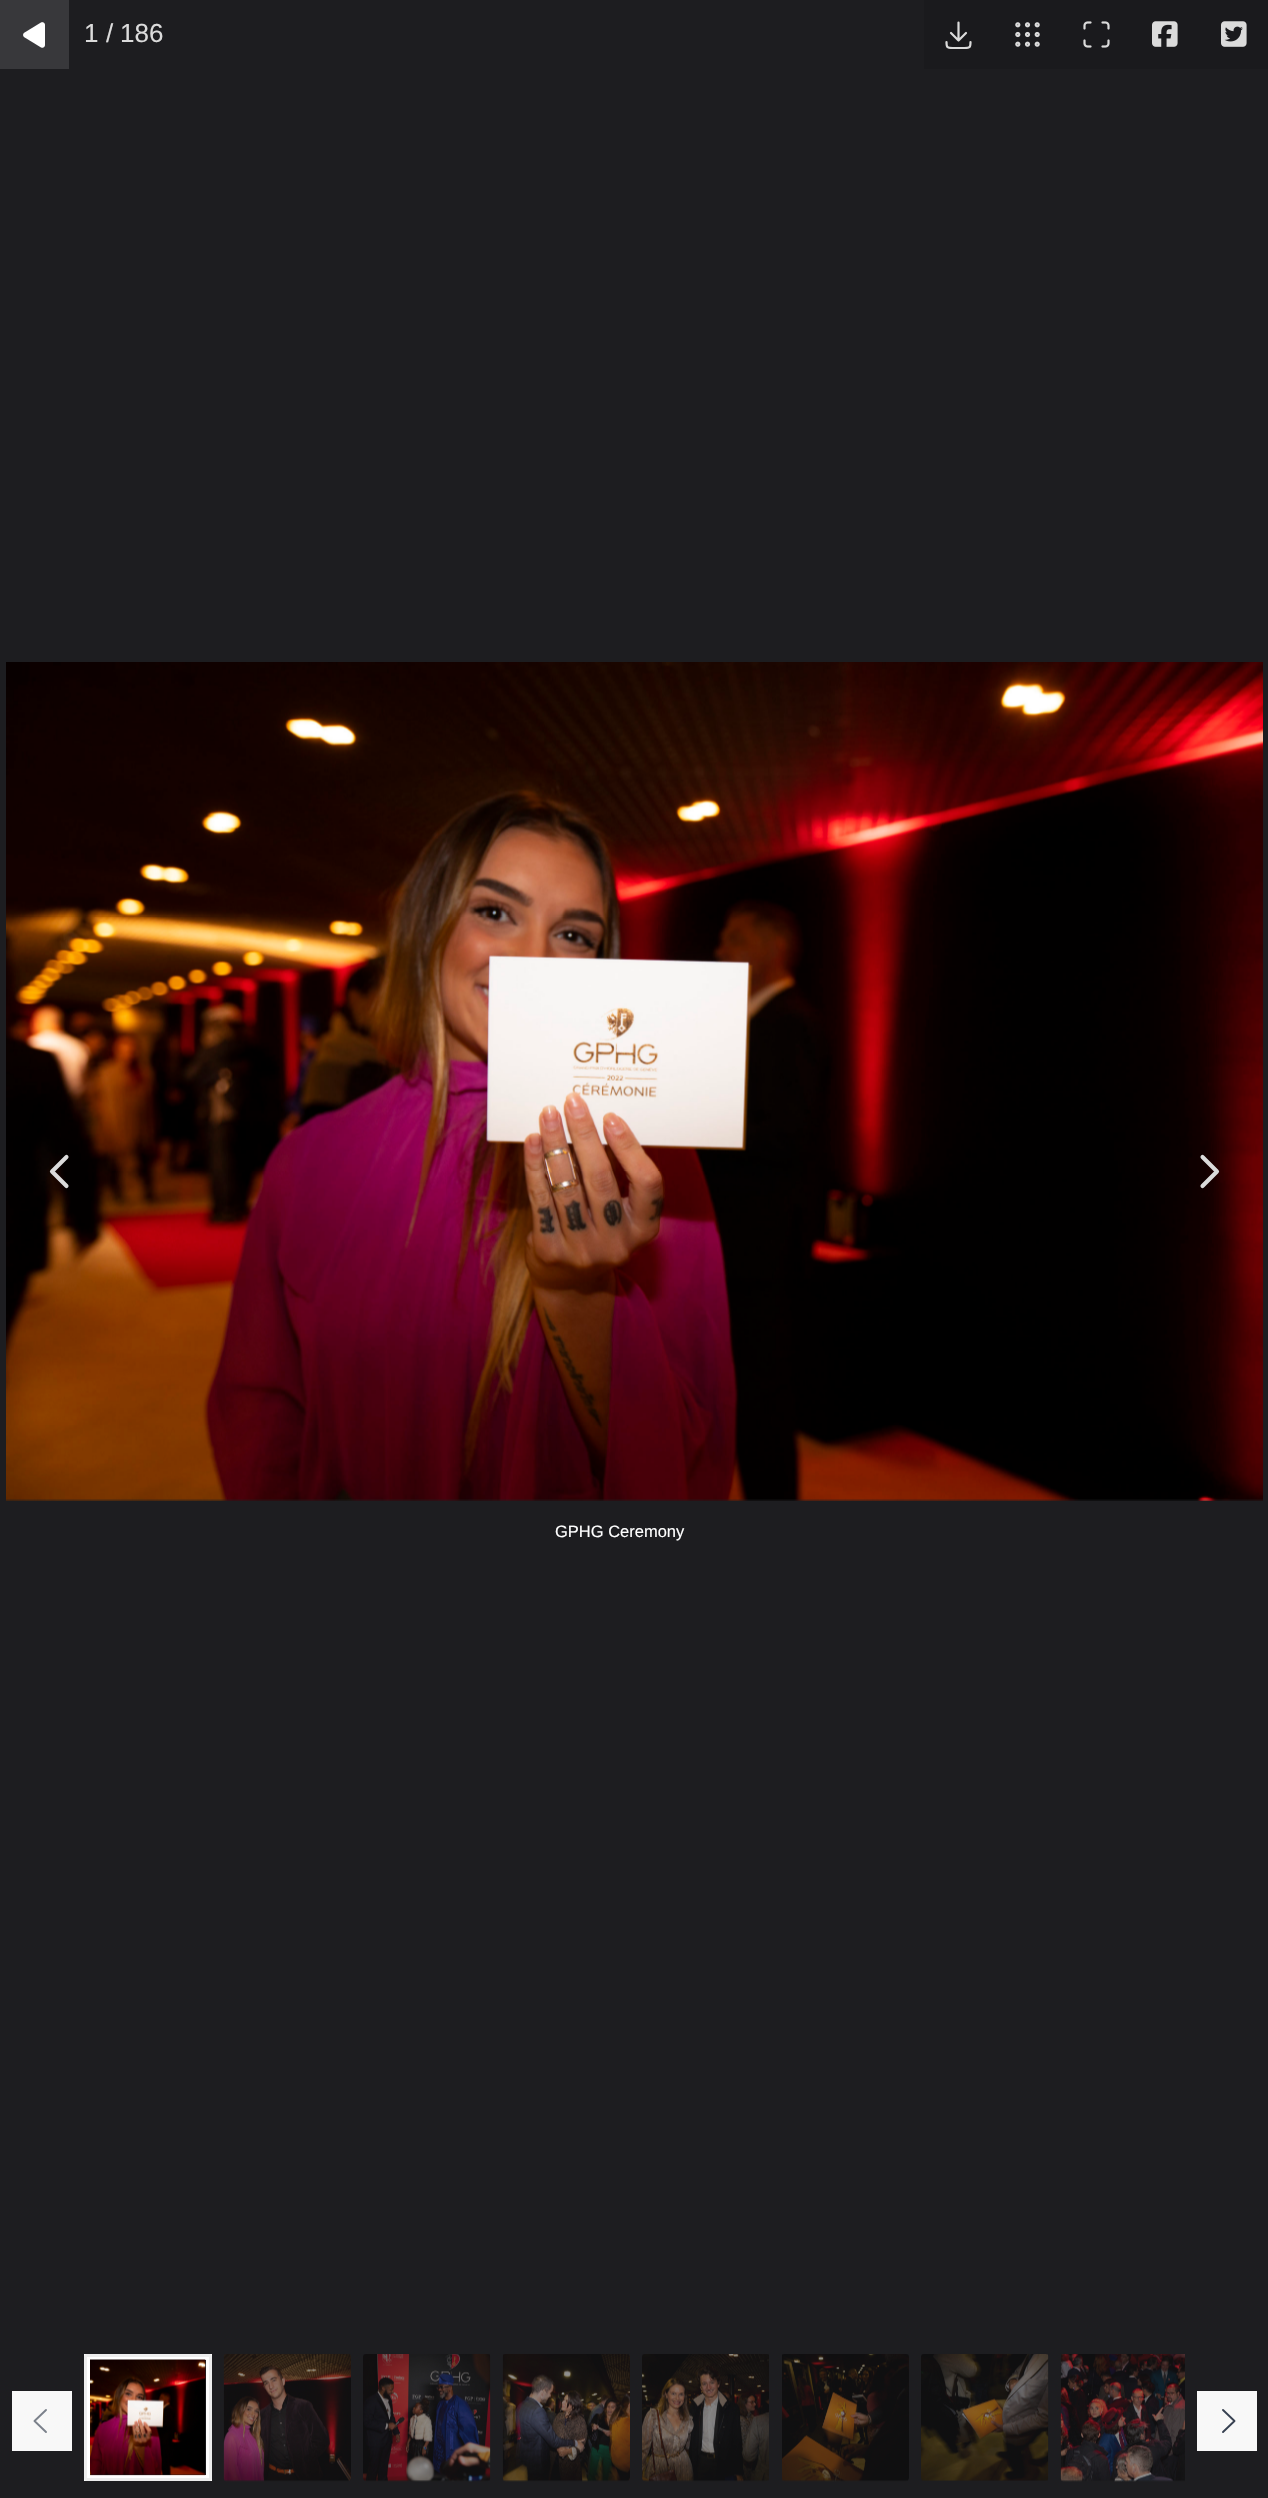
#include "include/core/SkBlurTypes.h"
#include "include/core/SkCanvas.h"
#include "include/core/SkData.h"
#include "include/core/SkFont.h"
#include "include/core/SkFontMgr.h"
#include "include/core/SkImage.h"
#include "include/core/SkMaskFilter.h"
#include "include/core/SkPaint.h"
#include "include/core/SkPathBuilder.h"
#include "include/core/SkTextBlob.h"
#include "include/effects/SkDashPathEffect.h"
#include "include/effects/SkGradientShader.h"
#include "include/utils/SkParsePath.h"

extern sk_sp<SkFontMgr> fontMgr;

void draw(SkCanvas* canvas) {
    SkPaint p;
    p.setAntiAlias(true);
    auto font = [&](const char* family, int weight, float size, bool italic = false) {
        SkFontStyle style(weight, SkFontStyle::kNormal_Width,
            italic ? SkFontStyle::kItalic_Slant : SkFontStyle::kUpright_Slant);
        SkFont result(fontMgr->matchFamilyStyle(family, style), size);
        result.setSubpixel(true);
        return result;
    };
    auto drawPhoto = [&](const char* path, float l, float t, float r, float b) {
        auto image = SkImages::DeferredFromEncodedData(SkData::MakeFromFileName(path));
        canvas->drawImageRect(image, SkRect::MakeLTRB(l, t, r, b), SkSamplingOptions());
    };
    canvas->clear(0xFF1D1D20);
    p.setColor(0xFF38383B);
    canvas->drawRect(SkRect::MakeLTRB(0, 0, 69, 69), p);
    drawPhoto("media/1.png", 23, 22, 45, 48);
    auto font1 = font("Liberation Sans", 400, 26);
    p.setColor(0xFFDBDBDB);
    {
        const struct { const char* s; float x, y; } items[] = {
            {"1", 84, 42},
            {"/", 106, 42},
            {"186", 120, 42},
        };
        for (auto [s, x, y] : items) {
            canvas->drawString(s, x, y, font1, p);
        }
    }
    p.setColor(0xFF1A1A1D);
    canvas->drawRect(SkRect::MakeLTRB(924, 0, 1268, 69), p);
    p.setStyle(SkPaint::kStroke_Style);
    p.setStrokeWidth(2.2f);
    p.setStrokeCap(SkPaint::kRound_Cap);
    p.setStrokeJoin(SkPaint::kRound_Join);
    p.setColor(0xFFDBDBDB);
    canvas->drawPath(SkPathBuilder().moveTo(946.5f, 42).cubicTo(946.5f, 47.5f, 947, 48, 952.5f, 48).lineTo(964.5f, 48).cubicTo(970, 48, 970.5f, 47.5f, 970.5f, 42).moveTo(951, 33).lineTo(958.5f, 40.5f).lineTo(966, 33).moveTo(958.5f, 22.5f).lineTo(958.5f, 40.5f).detach(), p);
    drawPhoto("media/2.png", 1015, 22, 1040, 47);
    drawPhoto("media/3.png", 1083, 21, 1110, 48);
    drawPhoto("media/4.png", 1152, 21, 1178, 47);
    drawPhoto("media/5.png", 1221, 21, 1247, 47);
    drawPhoto("media/6.png", 6, 662, 1263, 1501);
    p.setStrokeWidth(4.1f);
    canvas->drawPath(SkPathBuilder().moveTo(66.5f, 1157).lineTo(52, 1171.5f).lineTo(66.5f, 1186).detach(), p);
    canvas->drawPath(SkPathBuilder().moveTo(1202.5f, 1157).lineTo(1217, 1171.5f).lineTo(1202.5f, 1186).detach(), p);
    auto font2 = font("Liberation Sans", 400, 16.5f);
    p.setStyle(SkPaint::kFill_Style);
    p.setColor(0xFFFFFFFF);
    canvas->drawString("GPHG Ceremony", 555, 1537, font2, p);
    p.setStyle(SkPaint::kStroke_Style);
    p.setStrokeWidth(6);
    p.setStrokeCap(SkPaint::kButt_Cap);
    p.setStrokeJoin(SkPaint::kMiter_Join);
    canvas->drawRect(SkRect::MakeLTRB(87, 2357, 209, 2478), p);
    drawPhoto("media/7.png", 90, 2359, 206, 2476);
    p.setStrokeWidth(3);
    p.setColor(0xFFEDEDED);
    canvas->drawRoundRect(SkRect::MakeLTRB(85.5f, 2355.5f, 210.5f, 2479.5f), 1.5f, 1.5f, p);
    drawPhoto("media/8.png", 223, 2354, 351, 2482);
    drawPhoto("media/9.png", 363, 2354, 491, 2482);
    drawPhoto("media/10.png", 502, 2354, 630, 2482);
    drawPhoto("media/11.png", 642, 2354, 769, 2482);
    drawPhoto("media/12.png", 782, 2354, 909, 2482);
    drawPhoto("media/13.png", 921, 2354, 1049, 2481);
    drawPhoto("media/14.png", 1060, 2354, 1185, 2482);
    p.setStyle(SkPaint::kFill_Style);
    p.setColor(0xFFF8F8F8);
    canvas->drawRect(SkRect::MakeLTRB(12, 2391, 72, 2451), p);
    p.setStyle(SkPaint::kStroke_Style);
    p.setStrokeWidth(1.9f);
    p.setStrokeCap(SkPaint::kRound_Cap);
    p.setStrokeJoin(SkPaint::kRound_Join);
    p.setColor(0xFF7B818B);
    canvas->drawPath(SkPathBuilder().moveTo(46, 2410).lineTo(34.5f, 2421).lineTo(46, 2432).detach(), p);
    p.setStyle(SkPaint::kFill_Style);
    p.setColor(0xFFF8F8F8);
    canvas->drawRect(SkRect::MakeLTRB(1197, 2391, 1257, 2451), p);
    p.setStyle(SkPaint::kStroke_Style);
    p.setColor(0xFF374151);
    canvas->drawPath(SkPathBuilder().moveTo(1223, 2410).lineTo(1234.5f, 2421).lineTo(1223, 2432).detach(), p);
}
